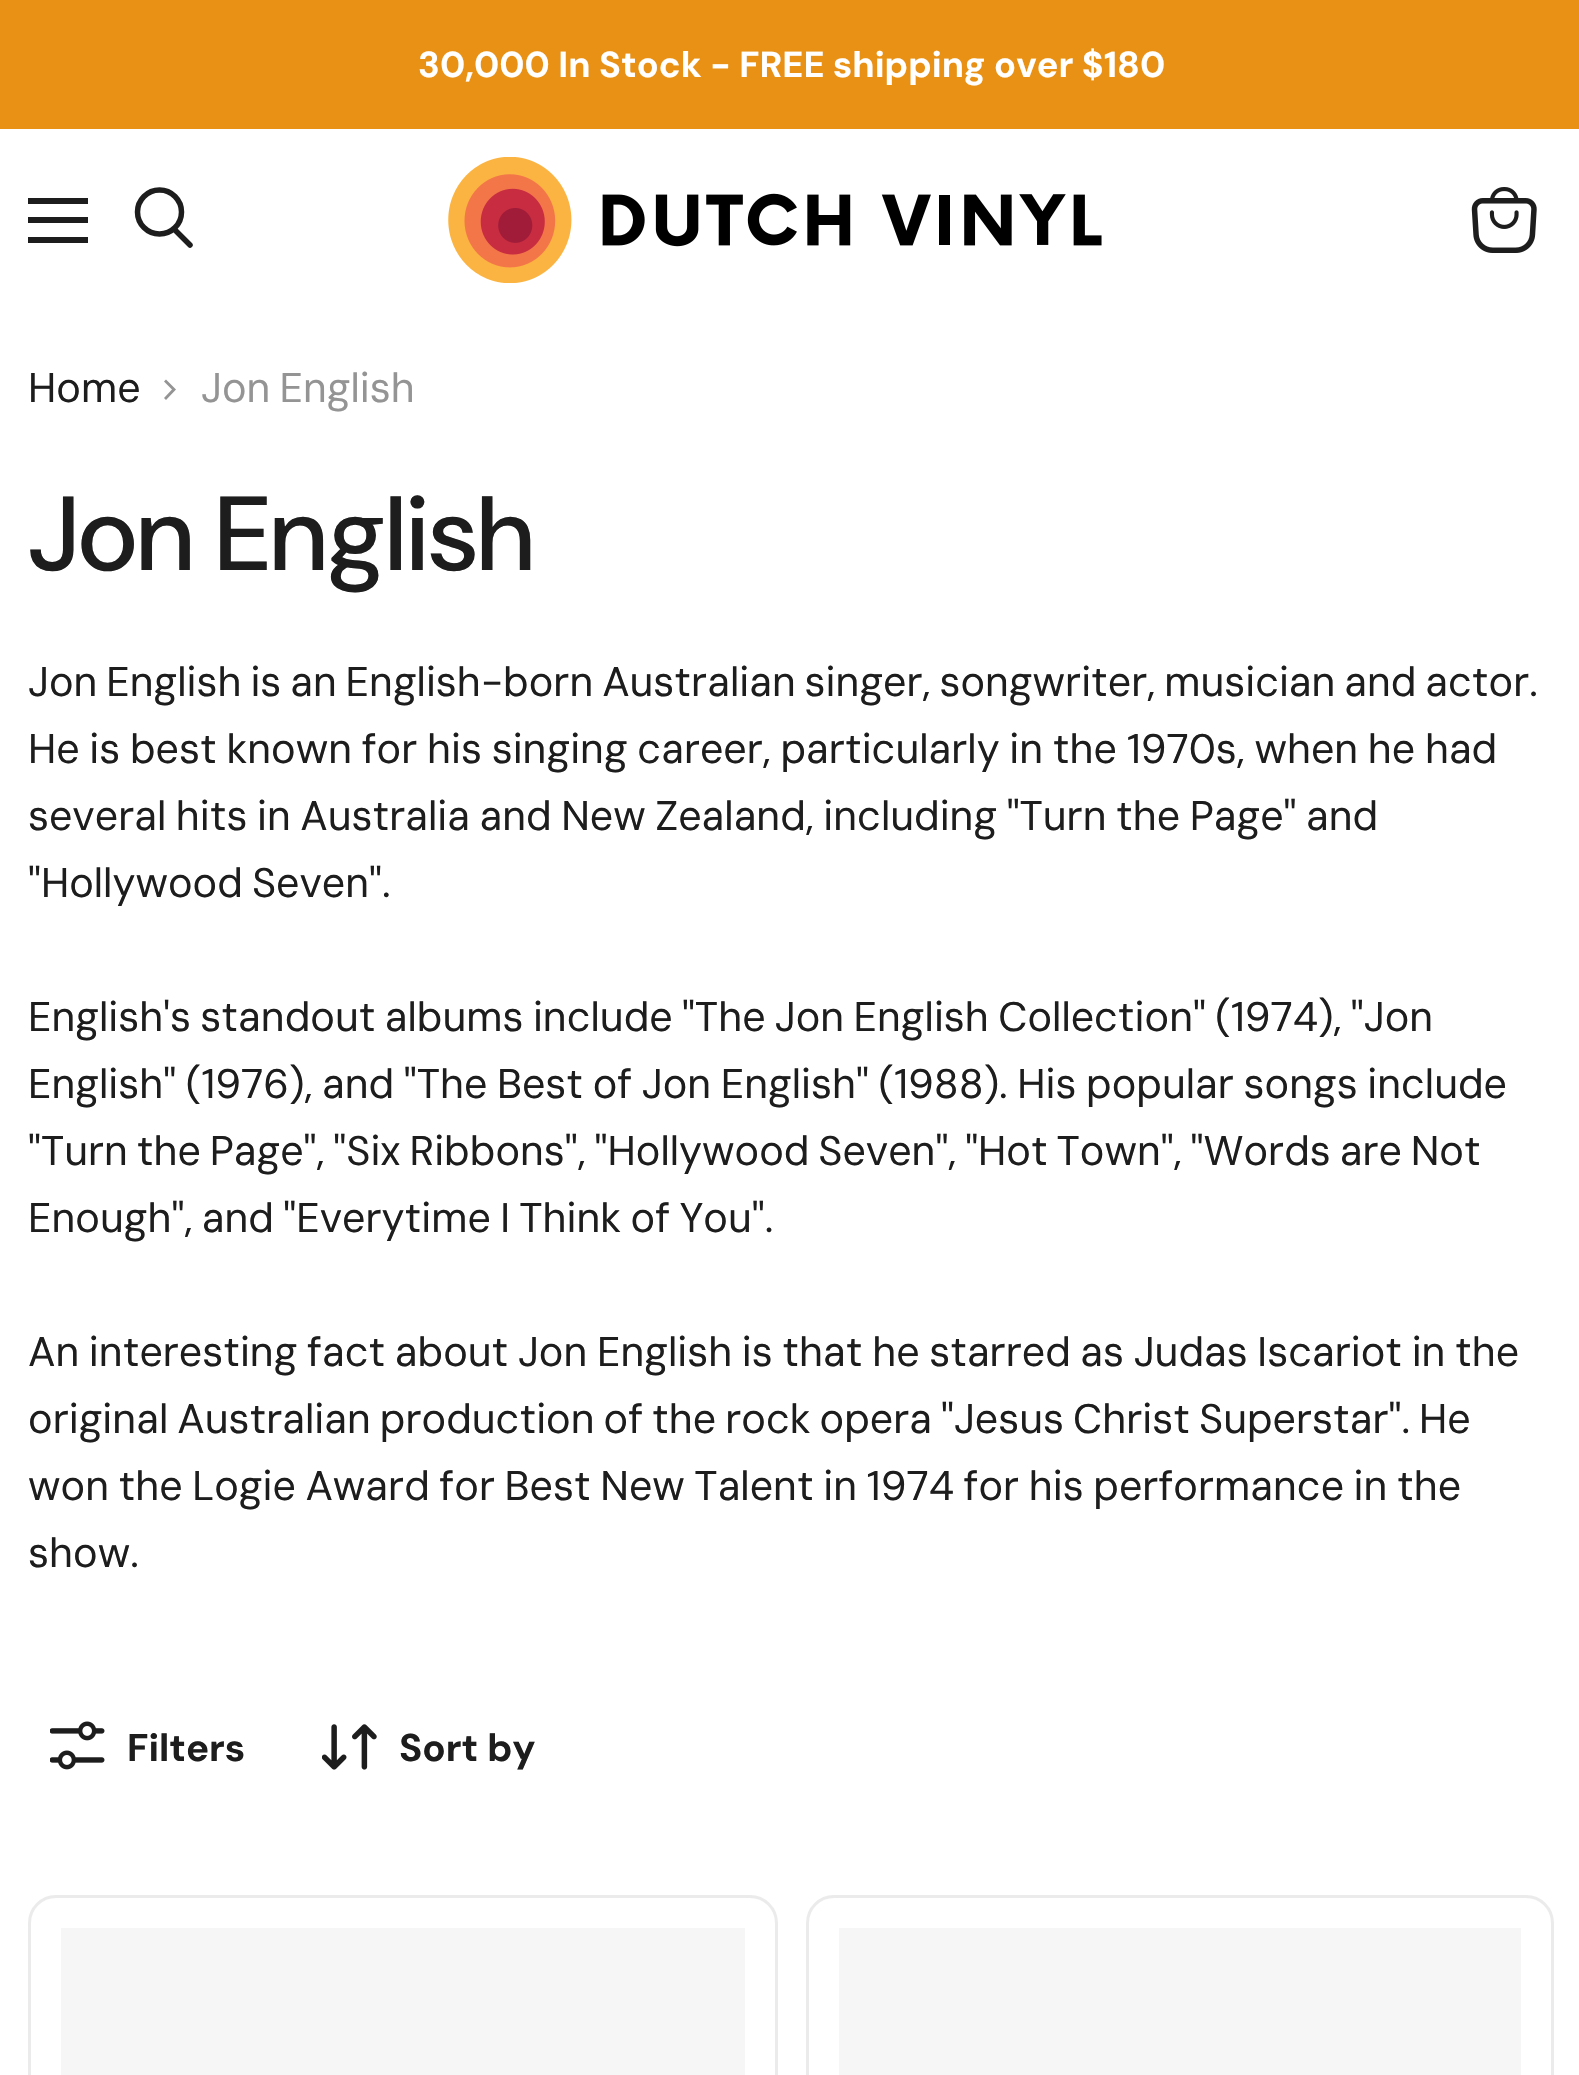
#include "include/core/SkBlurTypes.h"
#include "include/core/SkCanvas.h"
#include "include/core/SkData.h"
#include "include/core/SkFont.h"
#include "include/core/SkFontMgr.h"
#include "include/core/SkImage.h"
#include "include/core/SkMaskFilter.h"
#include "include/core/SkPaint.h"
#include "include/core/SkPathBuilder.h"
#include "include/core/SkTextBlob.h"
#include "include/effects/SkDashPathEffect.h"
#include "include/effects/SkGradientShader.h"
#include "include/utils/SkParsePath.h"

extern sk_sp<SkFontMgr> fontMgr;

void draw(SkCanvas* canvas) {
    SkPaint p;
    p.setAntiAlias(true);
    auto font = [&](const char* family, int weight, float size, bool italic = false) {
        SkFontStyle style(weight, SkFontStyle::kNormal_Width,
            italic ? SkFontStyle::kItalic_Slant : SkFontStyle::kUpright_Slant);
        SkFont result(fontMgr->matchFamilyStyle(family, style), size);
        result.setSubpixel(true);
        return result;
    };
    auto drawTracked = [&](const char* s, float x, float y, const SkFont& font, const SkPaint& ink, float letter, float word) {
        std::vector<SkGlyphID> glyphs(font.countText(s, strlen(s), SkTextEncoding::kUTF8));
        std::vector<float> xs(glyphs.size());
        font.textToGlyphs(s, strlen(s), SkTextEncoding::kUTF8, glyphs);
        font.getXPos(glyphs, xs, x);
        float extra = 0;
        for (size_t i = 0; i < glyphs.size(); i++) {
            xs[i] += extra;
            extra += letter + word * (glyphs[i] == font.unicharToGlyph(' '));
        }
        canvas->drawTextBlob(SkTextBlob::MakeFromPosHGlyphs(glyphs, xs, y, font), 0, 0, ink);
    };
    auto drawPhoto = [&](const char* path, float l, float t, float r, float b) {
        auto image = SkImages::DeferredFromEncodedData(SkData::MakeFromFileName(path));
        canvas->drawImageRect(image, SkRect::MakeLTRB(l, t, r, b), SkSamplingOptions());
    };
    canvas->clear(0xFFFFFFFF);
    p.setColor(0xFFE99114);
    canvas->drawRect(SkRect::MakeLTRB(0, 0, 1579, 129), p);
    auto font1 = font("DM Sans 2", 700, 36.1f);
    p.setColor(0xFFFFFFFF);
    canvas->drawString("30,000 In Stock - FREE shipping over $180", 418, 77, font1, p);
    {
        const struct { float l, t, r, b; SkColor color; } items[] = {
            {28, 198, 88, 204, 0xFF1D1D1D},
            {28, 217, 88, 223, 0xFF1D1D1D},
            {28, 237, 88, 243, 0xFF1D1D1D},
        };
        for (auto [l, t, r, b, color] : items) {
            p.setColor(color);
            canvas->drawRect(SkRect::MakeLTRB(l, t, r, b), p);
        }
    }
    p.setStyle(SkPaint::kStroke_Style);
    p.setStrokeWidth(5.5f);
    p.setStrokeCap(SkPaint::kRound_Cap);
    canvas->drawPath(SkPathBuilder().moveTo(190, 245).lineTo(174.5f, 229.5f).detach(), p);
    p.setStrokeCap(SkPaint::kButt_Cap);
    canvas->drawCircle(159.5f, 212, 22, p);
    drawPhoto("media/1.png", 448, 157, 1102, 283);
    drawPhoto("media/2.png", 1471, 187, 1537, 253);
    auto font2 = font("DM Sans", 400, 41.25f);
    p.setStyle(SkPaint::kFill_Style);
    canvas->drawString("Home", 28, 402, font2, p);
    p.setColor(0xFF949494);
    canvas->drawPath(SkPathBuilder(SkPathFillType::kEvenOdd).moveTo(164, 398).lineTo(166, 400).lineTo(176, 389.5f).lineTo(166, 379.5f).lineTo(164, 381.5f).lineTo(172, 389.5f).close().detach(), p);
    drawTracked("Jon English", 201, 402, font2, p, 0, -2);
    auto font3 = font("DM Sans", 500, 105);
    p.setColor(0xFF1D1D1D);
    canvas->drawString("Jon English", 28, 570, font3, p);
    drawTracked("Jon English is an English-born Australian singer, songwriter, musician and actor.", 28, 696, font2, p, 0, -2.25f);
    drawTracked("He is best known for his singing career, particularly in the 1970s, when he had", 28, 763, font2, p, 0, -1.4f);
    drawTracked("several hits in Australia and New Zealand, including \"Turn the Page\" and", 28, 830, font2, p, 0, -1.6f);
    drawTracked("\"Hollywood Seven\".", 28, 897, font2, p, 0, -2);
    drawTracked("English's standout albums include \"The Jon English Collection\" (1974), \"Jon", 28, 1031, font2, p, 0, -1.75f);
    drawTracked("English\" (1976), and \"The Best of Jon English\" (1988). His popular songs include", 28, 1098, font2, p, 0, -1.5f);
    drawTracked("\"Turn the Page\", \"Six Ribbons\", \"Hollywood Seven\", \"Hot Town\", \"Words are Not", 28, 1165, font2, p, 0, -2.25f);
    drawTracked("Enough\", and \"Everytime I Think of You\".", 28, 1232, font2, p, 0, -1.75f);
    drawTracked("An interesting fact about Jon English is that he starred as Judas Iscariot in the", 28, 1366, font2, p, 0, -1.5f);
    drawTracked("original Australian production of the rock opera \"Jesus Christ Superstar\". He", 28, 1433, font2, p, 0, -2.1f);
    drawTracked("won the Logie Award for Best New Talent in 1974 for his performance in the", 28, 1500, font2, p, 0, -1.5f);
    canvas->drawString("show.", 28, 1567, font2, p);
    drawPhoto("media/3.png", 50, 1721, 105, 1770);
    auto font4 = font("DM Sans", 700, 38.5f);
    canvas->drawString("Filters", 127, 1761, font4, p);
    drawPhoto("media/4.png", 322, 1724, 377, 1770);
    canvas->drawString("Sort by", 399, 1761, font4, p);
    p.setStyle(SkPaint::kStroke_Style);
    p.setStrokeWidth(3);
    p.setColor(0xFFEBEBEB);
    canvas->drawRoundRect(SkRect::MakeLTRB(29.5f, 1896.5f, 776.5f, 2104.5f), 26.5f, 26.5f, p);
    p.setStyle(SkPaint::kFill_Style);
    p.setColor(0xFFF6F6F6);
    canvas->drawRect(SkRect::MakeLTRB(61, 1928, 745, 2075), p);
    p.setStyle(SkPaint::kStroke_Style);
    p.setColor(0xFFEBEBEB);
    canvas->drawRoundRect(SkRect::MakeLTRB(807.5f, 1896.5f, 1552.5f, 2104.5f), 26.5f, 26.5f, p);
    p.setStyle(SkPaint::kFill_Style);
    p.setColor(0xFFF6F6F6);
    canvas->drawRect(SkRect::MakeLTRB(839, 1928, 1521, 2075), p);
}
